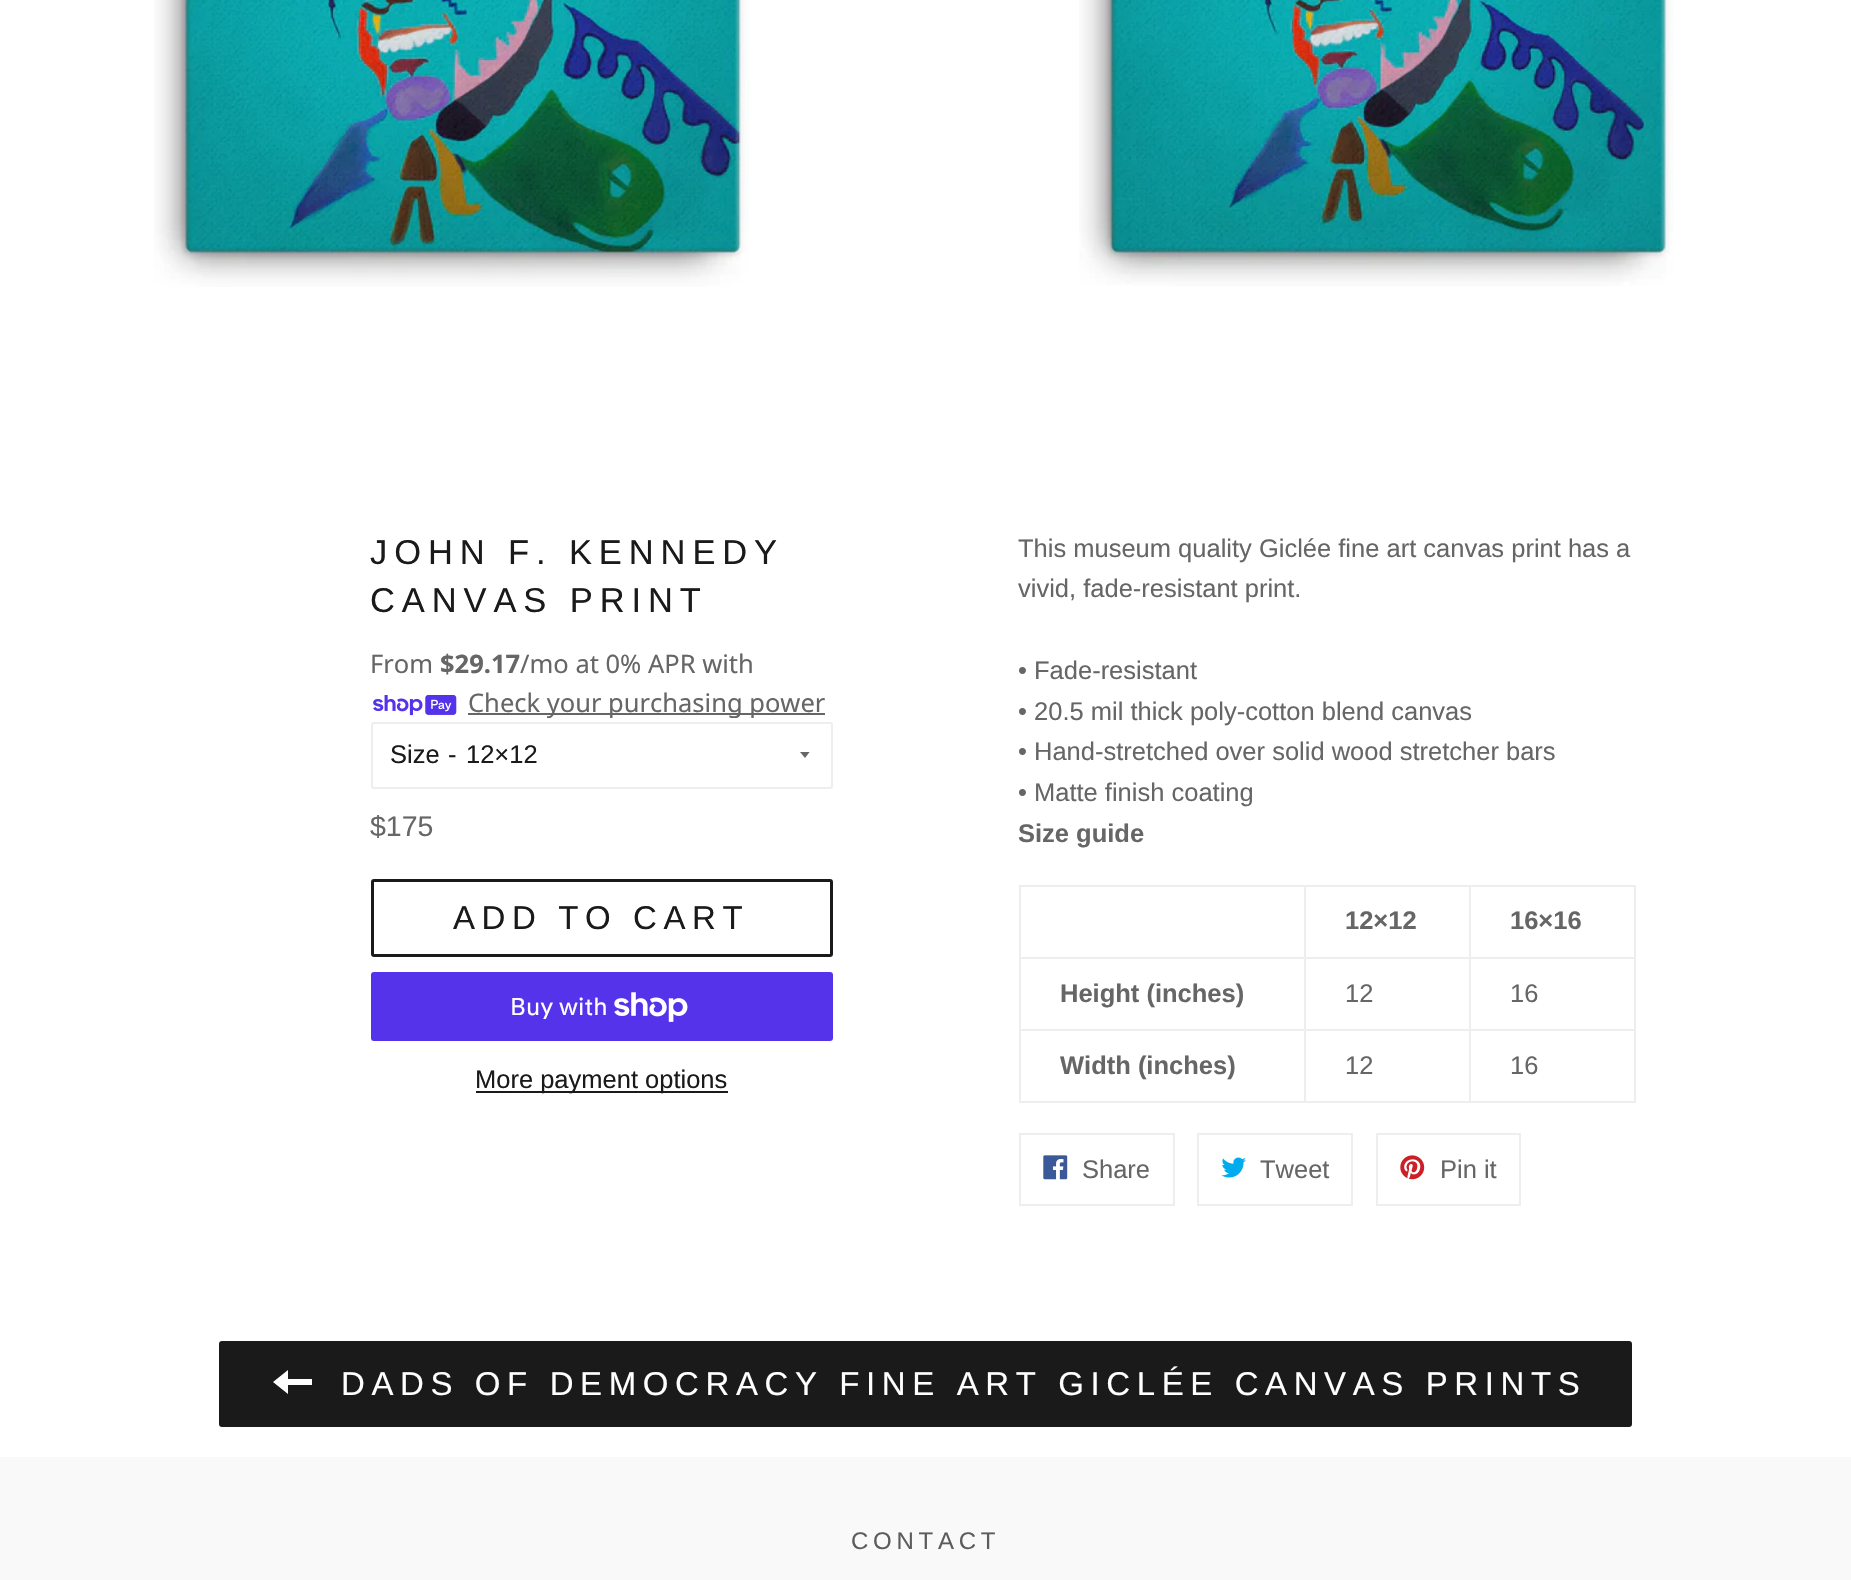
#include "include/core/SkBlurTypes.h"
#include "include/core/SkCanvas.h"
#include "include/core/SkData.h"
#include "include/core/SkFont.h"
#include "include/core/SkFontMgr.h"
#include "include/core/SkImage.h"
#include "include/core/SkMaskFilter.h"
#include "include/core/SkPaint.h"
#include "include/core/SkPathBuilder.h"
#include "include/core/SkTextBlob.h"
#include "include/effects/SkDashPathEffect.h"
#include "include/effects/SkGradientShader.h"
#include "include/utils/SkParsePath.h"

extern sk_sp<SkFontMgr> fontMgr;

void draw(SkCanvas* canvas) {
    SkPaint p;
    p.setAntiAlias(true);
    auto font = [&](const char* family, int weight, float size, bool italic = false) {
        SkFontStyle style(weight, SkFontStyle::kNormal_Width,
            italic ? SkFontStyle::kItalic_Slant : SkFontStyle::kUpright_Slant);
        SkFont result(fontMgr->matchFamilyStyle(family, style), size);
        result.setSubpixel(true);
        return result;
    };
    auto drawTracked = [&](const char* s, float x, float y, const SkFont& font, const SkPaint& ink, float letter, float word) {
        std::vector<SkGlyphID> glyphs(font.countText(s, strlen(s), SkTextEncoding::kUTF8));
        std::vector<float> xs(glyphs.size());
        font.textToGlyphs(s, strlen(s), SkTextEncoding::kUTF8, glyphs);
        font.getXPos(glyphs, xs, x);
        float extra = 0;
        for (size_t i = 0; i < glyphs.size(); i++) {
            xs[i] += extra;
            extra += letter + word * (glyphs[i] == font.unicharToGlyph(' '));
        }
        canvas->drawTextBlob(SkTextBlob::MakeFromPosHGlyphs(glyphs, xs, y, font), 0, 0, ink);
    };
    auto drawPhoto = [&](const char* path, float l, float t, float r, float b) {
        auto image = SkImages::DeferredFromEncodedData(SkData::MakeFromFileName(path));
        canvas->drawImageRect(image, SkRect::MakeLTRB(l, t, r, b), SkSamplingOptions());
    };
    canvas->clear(0xFFFFFFFF);
    drawPhoto("media/1.png", 154, 0, 749, 287);
    drawPhoto("media/2.png", 1079, 0, 1674, 286);
    auto font1 = font("Liberation Sans", 400, 34.5f);
    p.setColor(0xFF1A1A1A);
    drawTracked("JOHN F. KENNEDY", 370, 564, font1, p, 6.9f, 0);
    drawTracked("CANVAS PRINT", 370, 612, font1, p, 6.9f, 0);
    auto font2 = font("Noto Sans", 400, 25.5f);
    p.setColor(0xFF666666);
    canvas->drawString("From", 370, 673, font2, p);
    auto font3 = font("Noto Sans", 700, 25.5f);
    canvas->drawString("$29.17", 440, 673, font3, p);
    canvas->drawString("/mo at 0% APR with", 520, 673, font2, p);
    drawPhoto("media/3.png", 373, 695, 457, 716);
    canvas->drawRect(SkRect::MakeLTRB(468, 713, 825, 715), p);
    canvas->drawString("Check your purchasing power", 468, 712, font2, p);
    p.setStyle(SkPaint::kStroke_Style);
    p.setStrokeWidth(2);
    p.setColor(0xFFEEEEEE);
    canvas->drawRoundRect(SkRect::MakeLTRB(372, 723, 832, 788), 2, 2, p);
    auto font4 = font("Liberation Sans", 400, 25.5f);
    p.setStyle(SkPaint::kFill_Style);
    p.setColor(0xFF1A1A1A);
    canvas->drawString("Size", 390, 763, font4, p);
    canvas->drawString("-", 448, 763, font4, p);
    canvas->save();
    canvas->clipRect(SkRect::MakeLTRB(800, 752, 812, 759));
    p.setColor(0xFF666666);
    canvas->drawPath(SkPathBuilder().moveTo(799.5f, 751.5f).lineTo(805, 758).lineTo(810, 751.5f).close().detach(), p);
    canvas->restore();
    p.setColor(0xFF1A1A1A);
    canvas->drawString("12×12", 466, 763, font4, p);
    auto font5 = font("Liberation Sans", 400, 28.5f);
    p.setColor(0xFF666666);
    canvas->drawString("$175", 370, 836, font5, p);
    p.setStyle(SkPaint::kStroke_Style);
    p.setStrokeWidth(3);
    p.setColor(0xFF1A1A1A);
    canvas->drawRoundRect(SkRect::MakeLTRB(372.5f, 880.5f, 831.5f, 955.5f), 1.5f, 1.5f, p);
    auto font6 = font("Liberation Sans", 400, 33);
    p.setStyle(SkPaint::kFill_Style);
    drawTracked("ADD TO CART", 453, 929, font6, p, 6.6f, 0);
    p.setColor(0xFF5433EB);
    canvas->drawRoundRect(SkRect::MakeLTRB(371, 972, 833, 1041), 3, 3, p);
    auto font7 = font("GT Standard", 400, 24);
    p.setColor(0xFFFFFFFF);
    canvas->drawString("Buy with", 510, 1015, font7, p);
    drawPhoto("media/4.png", 614, 992, 688, 1022);
    p.setColor(0xFF1A1A1A);
    canvas->drawRect(SkRect::MakeLTRB(476, 1091, 728, 1093), p);
    canvas->drawString("More payment options", 475, 1088, font4, p);
    p.setColor(0xFF666666);
    {
        const struct { const char* s; float x, y; } items[] = {
            {"This museum quality Giclée fine art canvas print has a", 1018, 557},
            {"vivid, fade-resistant print.", 1018, 597},
            {"• Fade-resistant", 1018, 679},
            {"• 20.5 mil thick poly-cotton blend canvas", 1018, 720},
            {"• Hand-stretched over solid wood stretcher bars", 1018, 760},
            {"• Matte finish coating", 1018, 801},
        };
        for (auto [s, x, y] : items) {
            canvas->drawString(s, x, y, font4, p);
        }
    }
    auto font8 = font("Liberation Sans", 700, 25.5f);
    canvas->drawString("Size guide", 1018, 842, font8, p);
    {
        const struct { float l, t, r, b; SkColor color; } items[] = {
            {1469, 885, 1635, 887, 0xFFEEEEEE},
            {1469, 957, 1635, 959, 0xFFEEEEEE},
            {1469, 1029, 1635, 1031, 0xFFEEEEEE},
            {1634, 1029, 1636, 1103, 0xFFEEEEEE},
            {1469, 1101, 1635, 1103, 0xFFEEEEEE},
            {1469, 1029, 1471, 1103, 0xFFEEEEEE},
            {1304, 1029, 1470, 1031, 0xFFEEEEEE},
            {1469, 957, 1471, 1031, 0xFFEEEEEE},
            {1304, 957, 1470, 959, 0xFFEEEEEE},
            {1469, 885, 1471, 959, 0xFFEEEEEE},
            {1304, 885, 1470, 887, 0xFFEEEEEE},
            {1304, 1101, 1470, 1103, 0xFFEEEEEE},
            {1304, 1029, 1306, 1103, 0xFFEEEEEE},
            {1019, 1029, 1305, 1031, 0xFFEEEEEE},
            {1304, 957, 1306, 1031, 0xFFEEEEEE},
            {1019, 957, 1305, 959, 0xFFEEEEEE},
            {1304, 885, 1306, 959, 0xFFEEEEEE},
            {1019, 885, 1305, 887, 0xFFEEEEEE},
            {1019, 1101, 1305, 1103, 0xFFEEEEEE},
            {1019, 1029, 1021, 1103, 0xFFEEEEEE},
            {1019, 957, 1021, 1031, 0xFFEEEEEE},
            {1019, 885, 1021, 959, 0xFFEEEEEE},
        };
        for (auto [l, t, r, b, color] : items) {
            p.setColor(color);
            canvas->drawRect(SkRect::MakeLTRB(l, t, r, b), p);
        }
    }
    p.setColor(0xFF666666);
    canvas->drawString("12×12", 1345, 929, font8, p);
    p.setColor(0xFFEEEEEE);
    canvas->drawRect(SkRect::MakeLTRB(1634, 957, 1636, 1031), p);
    canvas->drawRect(SkRect::MakeLTRB(1634, 885, 1636, 959), p);
    p.setColor(0xFF666666);
    canvas->drawString("16×16", 1510, 929, font8, p);
    canvas->drawString("Height (inches)", 1060, 1002, font8, p);
    canvas->drawString("12", 1345, 1002, font4, p);
    canvas->drawString("16", 1510, 1002, font4, p);
    canvas->drawString("Width (inches)", 1060, 1074, font8, p);
    canvas->drawString("12", 1345, 1074, font4, p);
    canvas->drawString("16", 1510, 1074, font4, p);
    p.setStyle(SkPaint::kStroke_Style);
    p.setStrokeWidth(2);
    p.setColor(0xFFEEEEEE);
    canvas->drawRect(SkRect::MakeLTRB(1020, 1134, 1174, 1205), p);
    drawPhoto("media/5.png", 1043, 1155, 1068, 1180);
    p.setStyle(SkPaint::kFill_Style);
    p.setColor(0xFF666666);
    canvas->drawString("Share", 1082, 1178, font4, p);
    p.setStyle(SkPaint::kStroke_Style);
    p.setColor(0xFFEEEEEE);
    canvas->drawRect(SkRect::MakeLTRB(1198, 1134, 1352, 1205), p);
    drawPhoto("media/6.png", 1221, 1157, 1246, 1178);
    p.setStyle(SkPaint::kFill_Style);
    p.setColor(0xFF666666);
    canvas->drawString("Tweet", 1260, 1178, font4, p);
    p.setStyle(SkPaint::kStroke_Style);
    p.setColor(0xFFEEEEEE);
    canvas->drawRect(SkRect::MakeLTRB(1377, 1134, 1520, 1205), p);
    drawPhoto("media/7.png", 1400, 1155, 1425, 1180);
    p.setStyle(SkPaint::kFill_Style);
    p.setColor(0xFF666666);
    canvas->drawString("Pin it", 1440, 1178, font4, p);
    p.setColor(0xFF1A1A1A);
    canvas->drawRoundRect(SkRect::MakeLTRB(219, 1341, 1632, 1427), 3, 3, p);
    p.setColor(0xFFFFFFFF);
    canvas->drawPath(SkPathBuilder().moveTo(288, 1379).lineTo(288, 1370).lineTo(273, 1382).lineTo(288, 1394).lineTo(288, 1385).lineTo(312, 1385).lineTo(312, 1379).close().detach(), p);
    drawTracked("DADS OF DEMOCRACY FINE ART GICLÉE CANVAS PRINTS", 341, 1395, font6, p, 6.6f, 0);
    p.setColor(0xFFF9F9F9);
    canvas->drawRect(SkRect::MakeLTRB(0, 1457, 1851, 1580), p);
    auto font9 = font("Liberation Sans", 400, 24);
    p.setColor(0xFF5C5C5C);
    drawTracked("CONTACT", 851, 1549, font9, p, 4.75f, 0);
}
